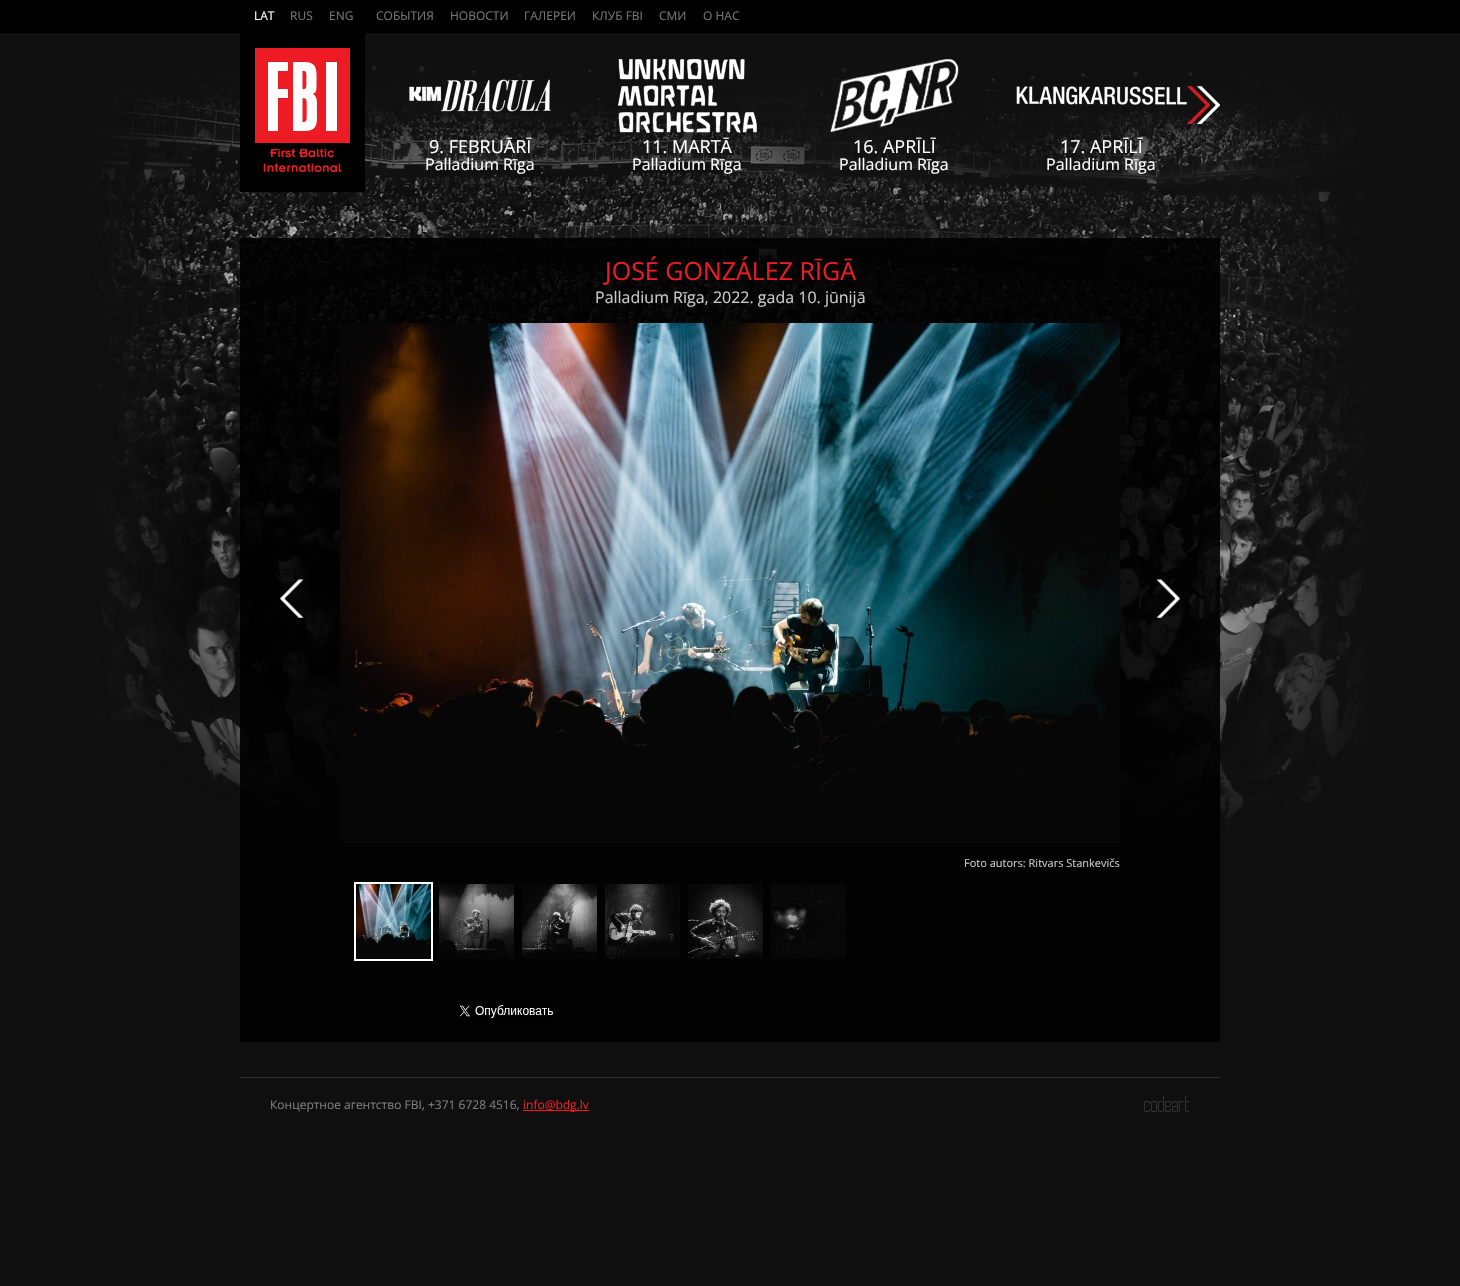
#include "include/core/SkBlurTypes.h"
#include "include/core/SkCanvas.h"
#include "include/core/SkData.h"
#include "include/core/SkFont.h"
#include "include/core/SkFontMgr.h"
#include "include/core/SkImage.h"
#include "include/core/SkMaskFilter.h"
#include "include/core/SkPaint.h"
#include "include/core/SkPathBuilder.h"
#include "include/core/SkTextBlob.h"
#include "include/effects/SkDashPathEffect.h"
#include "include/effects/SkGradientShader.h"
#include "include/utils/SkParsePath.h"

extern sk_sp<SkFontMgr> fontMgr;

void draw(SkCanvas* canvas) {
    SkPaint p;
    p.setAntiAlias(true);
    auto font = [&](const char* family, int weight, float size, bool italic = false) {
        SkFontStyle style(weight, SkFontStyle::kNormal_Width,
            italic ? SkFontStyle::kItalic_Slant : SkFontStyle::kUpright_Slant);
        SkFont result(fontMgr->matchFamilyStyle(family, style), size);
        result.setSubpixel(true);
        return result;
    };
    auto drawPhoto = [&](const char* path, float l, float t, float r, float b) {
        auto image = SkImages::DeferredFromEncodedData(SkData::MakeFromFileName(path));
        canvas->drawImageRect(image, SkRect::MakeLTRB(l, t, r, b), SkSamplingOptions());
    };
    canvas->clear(0xFF0F0F0F);
    p.setColor(0xFF000000);
    canvas->drawRect(SkRect::MakeLTRB(0, 0, 1460, 33), p);
    auto font1 = font("Open Sans", 400, 12);
    p.setColor(0xFFFFFFFF);
    canvas->drawString("LAT", 254, 20, font1, p);
    p.setColor(0xFF777777);
    {
        const struct { const char* s; float x, y; } items[] = {
            {"RUS", 290, 20},
            {"ENG", 329, 20},
            {"СОБЫТИЯ", 376, 20},
            {"НОВОСТИ", 450, 20},
            {"ГАЛЕРЕИ", 524, 20},
            {"КЛУБ FBI", 592, 20},
            {"СМИ", 659, 20},
            {"О НАС", 703, 20},
        };
        for (auto [s, x, y] : items) {
            canvas->drawString(s, x, y, font1, p);
        }
    }
    drawPhoto("media/2.png", 89, 40, 1368, 844);
    drawPhoto("media/1.png", 80, 33, 1380, 890);
    p.setColor(0xFF000000);
    canvas->drawRect(SkRect::MakeLTRB(240, 33, 365, 192), p);
    drawPhoto("media/3.png", 255, 48, 350, 172);
    drawPhoto("media/4.png", 1187, 86, 1220, 124);
    drawPhoto("media/5.png", 409, 79, 551, 112);
    auto font2 = font("Open Sans", 400, 18);
    p.setColor(0xFFFFFFFF);
    canvas->drawString("9. FEBRUĀRĪ", 429, 153, font2, p);
    auto font3 = font("Open Sans", 400, 16);
    canvas->drawString("Palladium Rīga", 425, 170, font3, p);
    drawPhoto("media/6.png", 618, 59, 757, 133);
    canvas->drawString("11. MARTĀ", 642, 153, font2, p);
    canvas->drawString("Palladium Rīga", 632, 170, font3, p);
    drawPhoto("media/7.png", 830, 59, 959, 132);
    canvas->drawString("16. APRĪLĪ", 853, 153, font2, p);
    canvas->drawString("Palladium Rīga", 839, 170, font3, p);
    drawPhoto("media/8.png", 1016, 86, 1187, 105);
    canvas->drawString("17. APRĪLĪ", 1060, 153, font2, p);
    canvas->drawString("Palladium Rīga", 1046, 170, font3, p);
    p.setColor(0xE6000000);
    canvas->drawRect(SkRect::MakeLTRB(240, 238, 1220, 1042), p);
    auto font4 = font("Open Sans", 400, 25);
    p.setColor(0xFFED1C24);
    canvas->drawString("JOSÉ GONZÁLEZ RĪGĀ", 605, 280, font4, p);
    p.setColor(0xFFCCCCCC);
    canvas->drawString("Palladium Rīga, 2022. gada 10. jūnijā", 595, 303, font3, p);
    drawPhoto("media/9.png", 280, 579, 304, 618);
    drawPhoto("media/10.png", 1156, 579, 1180, 618);
    drawPhoto("media/11.png", 340, 323, 1120, 843);
    auto font5 = font("Open Sans", 400, 11);
    canvas->drawString("Foto autors: Ritvars Stankevičs", 964, 867, font5, p);
    p.setStyle(SkPaint::kStroke_Style);
    p.setStrokeWidth(2);
    p.setColor(0xFFFFFFFF);
    canvas->drawRect(SkRect::MakeLTRB(355, 883, 432, 960), p);
    drawPhoto("media/12.png", 356, 884, 431, 959);
    drawPhoto("media/13.png", 439, 884, 514, 959);
    drawPhoto("media/14.png", 522, 884, 597, 959);
    drawPhoto("media/15.png", 605, 884, 680, 959);
    drawPhoto("media/16.png", 688, 884, 763, 959);
    drawPhoto("media/17.png", 688, 893, 762, 959);
    drawPhoto("media/18.png", 771, 884, 846, 959);
    drawPhoto("media/19.png", 459, 1005, 553, 1018);
    p.setStyle(SkPaint::kFill_Style);
    p.setColor(0xFF2F2F2F);
    canvas->drawRect(SkRect::MakeLTRB(240, 1077, 1220, 1078), p);
    p.setColor(0xFF7E7E7E);
    canvas->drawString("Концертное агентство FBI, +371 6728 4516,", 270, 1109, font1, p);
    p.setColor(0xFFED1C24);
    canvas->drawRect(SkRect::MakeLTRB(523, 1110, 589, 1111), p);
    canvas->drawString("info@bdg.lv", 523, 1109, font1, p);
    drawPhoto("media/20.png", 1144, 1096, 1189, 1112);
}
